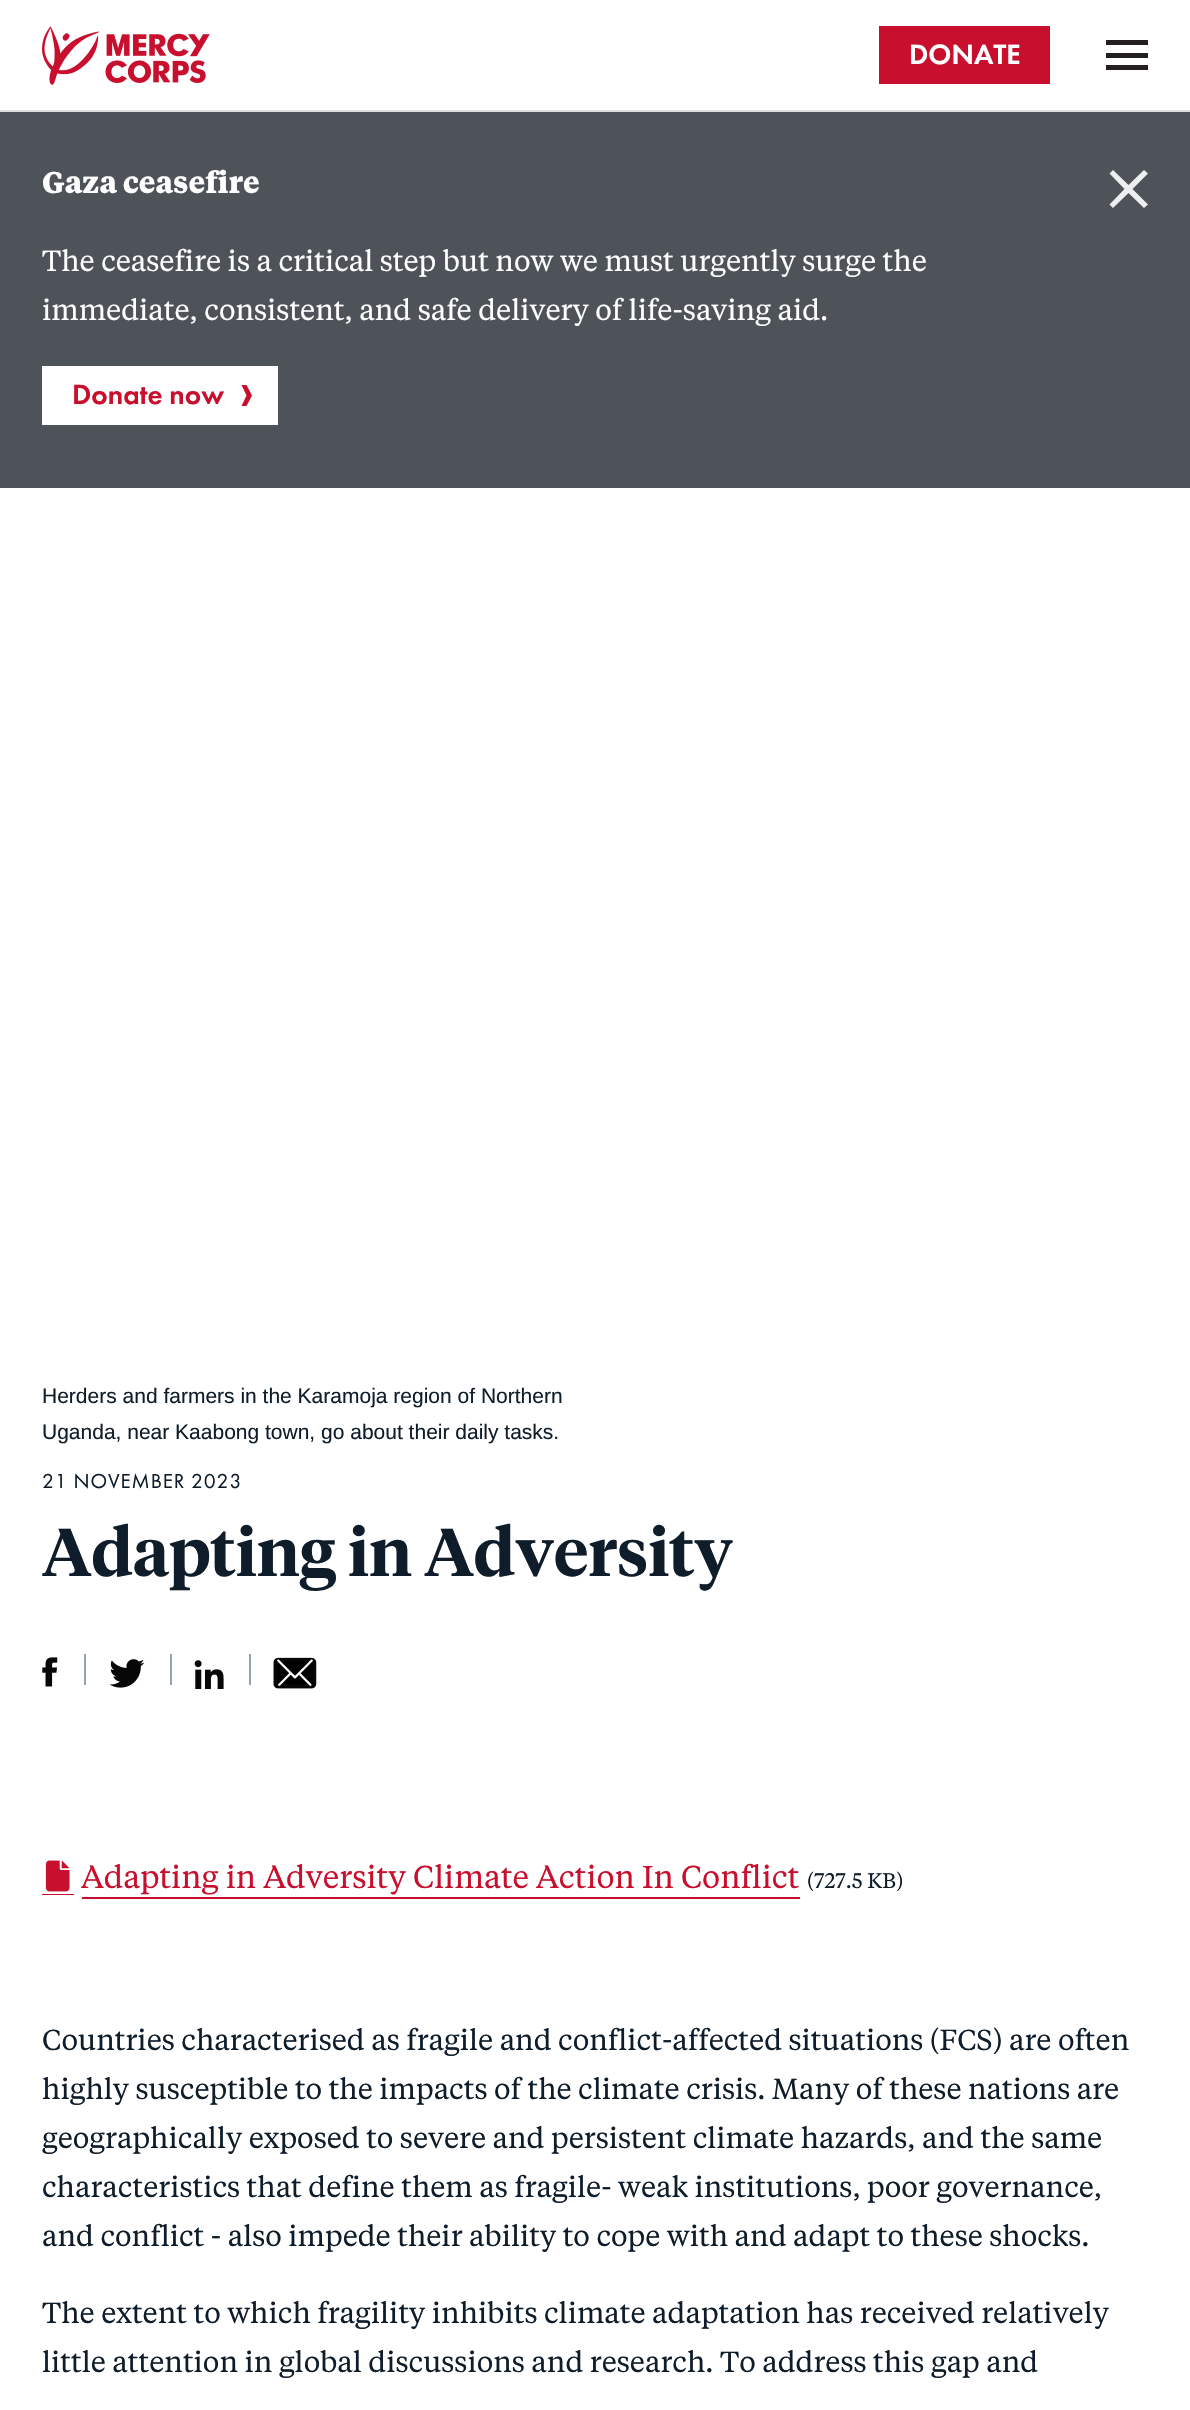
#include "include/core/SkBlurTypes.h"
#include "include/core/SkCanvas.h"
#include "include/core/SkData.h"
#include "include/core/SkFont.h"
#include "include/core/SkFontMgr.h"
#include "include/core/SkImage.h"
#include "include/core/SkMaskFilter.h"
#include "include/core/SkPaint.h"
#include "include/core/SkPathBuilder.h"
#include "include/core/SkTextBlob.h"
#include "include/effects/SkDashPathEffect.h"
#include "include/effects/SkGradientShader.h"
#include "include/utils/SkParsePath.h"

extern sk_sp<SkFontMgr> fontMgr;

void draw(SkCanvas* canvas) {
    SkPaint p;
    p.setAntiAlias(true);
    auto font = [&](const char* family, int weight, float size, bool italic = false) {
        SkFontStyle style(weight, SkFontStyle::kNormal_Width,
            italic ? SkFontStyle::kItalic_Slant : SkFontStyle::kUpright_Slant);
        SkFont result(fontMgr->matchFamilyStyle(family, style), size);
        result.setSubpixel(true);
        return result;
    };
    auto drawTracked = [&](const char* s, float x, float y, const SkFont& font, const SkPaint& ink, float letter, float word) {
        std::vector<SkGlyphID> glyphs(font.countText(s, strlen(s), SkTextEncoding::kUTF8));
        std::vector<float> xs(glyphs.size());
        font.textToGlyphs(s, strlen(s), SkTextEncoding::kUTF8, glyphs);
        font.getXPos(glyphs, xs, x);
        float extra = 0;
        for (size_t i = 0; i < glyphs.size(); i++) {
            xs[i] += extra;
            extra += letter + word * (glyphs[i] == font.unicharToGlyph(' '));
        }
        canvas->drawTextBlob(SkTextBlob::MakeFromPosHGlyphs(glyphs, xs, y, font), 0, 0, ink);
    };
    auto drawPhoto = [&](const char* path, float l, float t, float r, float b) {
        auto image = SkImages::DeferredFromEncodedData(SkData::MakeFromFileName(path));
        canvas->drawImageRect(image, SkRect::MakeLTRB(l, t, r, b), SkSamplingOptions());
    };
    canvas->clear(0xFFFFFFFF);
    p.setColor(0xFFE0E0E0);
    canvas->drawRect(SkRect::MakeLTRB(0, 110, 1190, 112), p);
    drawPhoto("media/1.png", 42, 26, 210, 85);
    p.setColor(0xFFC8102E);
    canvas->drawRect(SkRect::MakeLTRB(879, 26, 1050, 84), p);
    auto font1 = font("Futura", 600, 28.9f);
    p.setColor(0xFFFFFFFF);
    canvas->drawString("DONATE", 909, 64, font1, p);
    {
        const struct { float l, t, r, b; SkColor color; } items[] = {
            {1106, 40, 1148, 45, 0xFF231F20},
            {1106, 53, 1148, 58, 0xFF231F20},
            {1106, 65, 1148, 70, 0xFF231F20},
            {0, 112, 1190, 488, 0xFF4E535A},
        };
        for (auto [l, t, r, b, color] : items) {
            p.setColor(color);
            canvas->drawRect(SkRect::MakeLTRB(l, t, r, b), p);
        }
    }
    auto font2 = font("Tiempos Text", 700, 29.75f);
    p.setColor(0xFFFFFFFF);
    canvas->drawString("Gaza ceasefire", 42, 193, font2, p);
    auto font3 = font("Tiempos Text", 400, 28.9f);
    canvas->drawString("The ceasefire is a critical step but now we must urgently surge the", 42, 271, font3, p);
    canvas->drawString("immediate, consistent, and safe delivery of life-saving aid.", 42, 320, font3, p);
    canvas->drawRect(SkRect::MakeLTRB(42, 366, 278, 425), p);
    p.setColor(0xFFC8102E);
    canvas->drawString("Donate now", 72, 404, font1, p);
    canvas->drawPath(SkPathBuilder(SkPathFillType::kEvenOdd).moveTo(241.5f, 385).lineTo(246.5f, 395.5f).lineTo(241.5f, 406).lineTo(246.5f, 406).lineTo(252, 395.5f).lineTo(246.5f, 385).close().detach(), p);
    p.setColor(0xFFEDEEEF);
    canvas->drawPath(SkPathBuilder().moveTo(1148, 173.5f).lineTo(1144, 170).lineTo(1128.5f, 185).lineTo(1113, 170).lineTo(1109.5f, 173.5f).lineTo(1124.5f, 189).lineTo(1109.5f, 204.5f).lineTo(1113, 208).lineTo(1128.5f, 193).lineTo(1144, 208).lineTo(1148, 204.5f).lineTo(1132.5f, 189).close().detach(), p);
    auto font4 = font("Liberation Sans", 400, 21);
    p.setColor(0xFF0F1D2B);
    canvas->drawString("Herders and farmers in the Karamoja region of Northern", 42, 1403, font4, p);
    canvas->drawString("Uganda, near Kaabong town, go about their daily tasks.", 42, 1439, font4, p);
    auto font5 = font("Futura", 400, 21);
    drawTracked("21 NOVEMBER 2023", 42, 1488, font5, p, 0.9f, 0);
    auto font6 = font("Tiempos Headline", 600, 66.75f);
    canvas->drawString("Adapting in Adversity", 42, 1576, font6, p);
    p.setColor(0xFF91A3B0);
    canvas->drawRect(SkRect::MakeLTRB(84, 1654, 86, 1685), p);
    drawPhoto("media/2.png", 42, 1657, 58, 1687);
    canvas->drawRect(SkRect::MakeLTRB(170, 1654, 172, 1685), p);
    drawPhoto("media/3.png", 109, 1659, 145, 1688);
    canvas->drawRect(SkRect::MakeLTRB(249, 1654, 251, 1685), p);
    drawPhoto("media/4.png", 194, 1660, 224, 1689);
    drawPhoto("media/5.png", 273, 1657, 317, 1689);
    p.setColor(0xFFC8102E);
    canvas->drawRect(SkRect::MakeLTRB(42, 1894, 74, 1895), p);
    canvas->drawRect(SkRect::MakeLTRB(82, 1897, 800, 1899), p);
    drawPhoto("media/6.png", 45, 1860, 70, 1892);
    auto font7 = font("Tiempos Text", 400, 31.5f);
    canvas->drawString("Adapting in Adversity Climate Action In Conflict", 81, 1888, font7, p);
    auto font8 = font("Tiempos Text", 400, 21);
    p.setColor(0xFF0F1D2B);
    canvas->drawString("(727.5 KB)", 807, 1888, font8, p);
    {
        const struct { const char* s; float x, y; } items[] = {
            {"Countries characterised as fragile and conflict-affected situations (FCS) are often", 42, 2050},
            {"highly susceptible to the impacts of the climate crisis. Many of these nations are", 42, 2099},
            {"geographically exposed to severe and persistent climate hazards, and the same", 42, 2148},
            {"characteristics that define them as fragile- weak institutions, poor governance,", 42, 2197},
            {"and conflict - also impede their ability to cope with and adapt to these shocks.", 42, 2246},
            {"The extent to which fragility inhibits climate adaptation has received relatively", 42, 2323},
            {"little attention in global discussions and research. To address this gap and", 42, 2372},
        };
        for (auto [s, x, y] : items) {
            canvas->drawString(s, x, y, font3, p);
        }
    }
}
